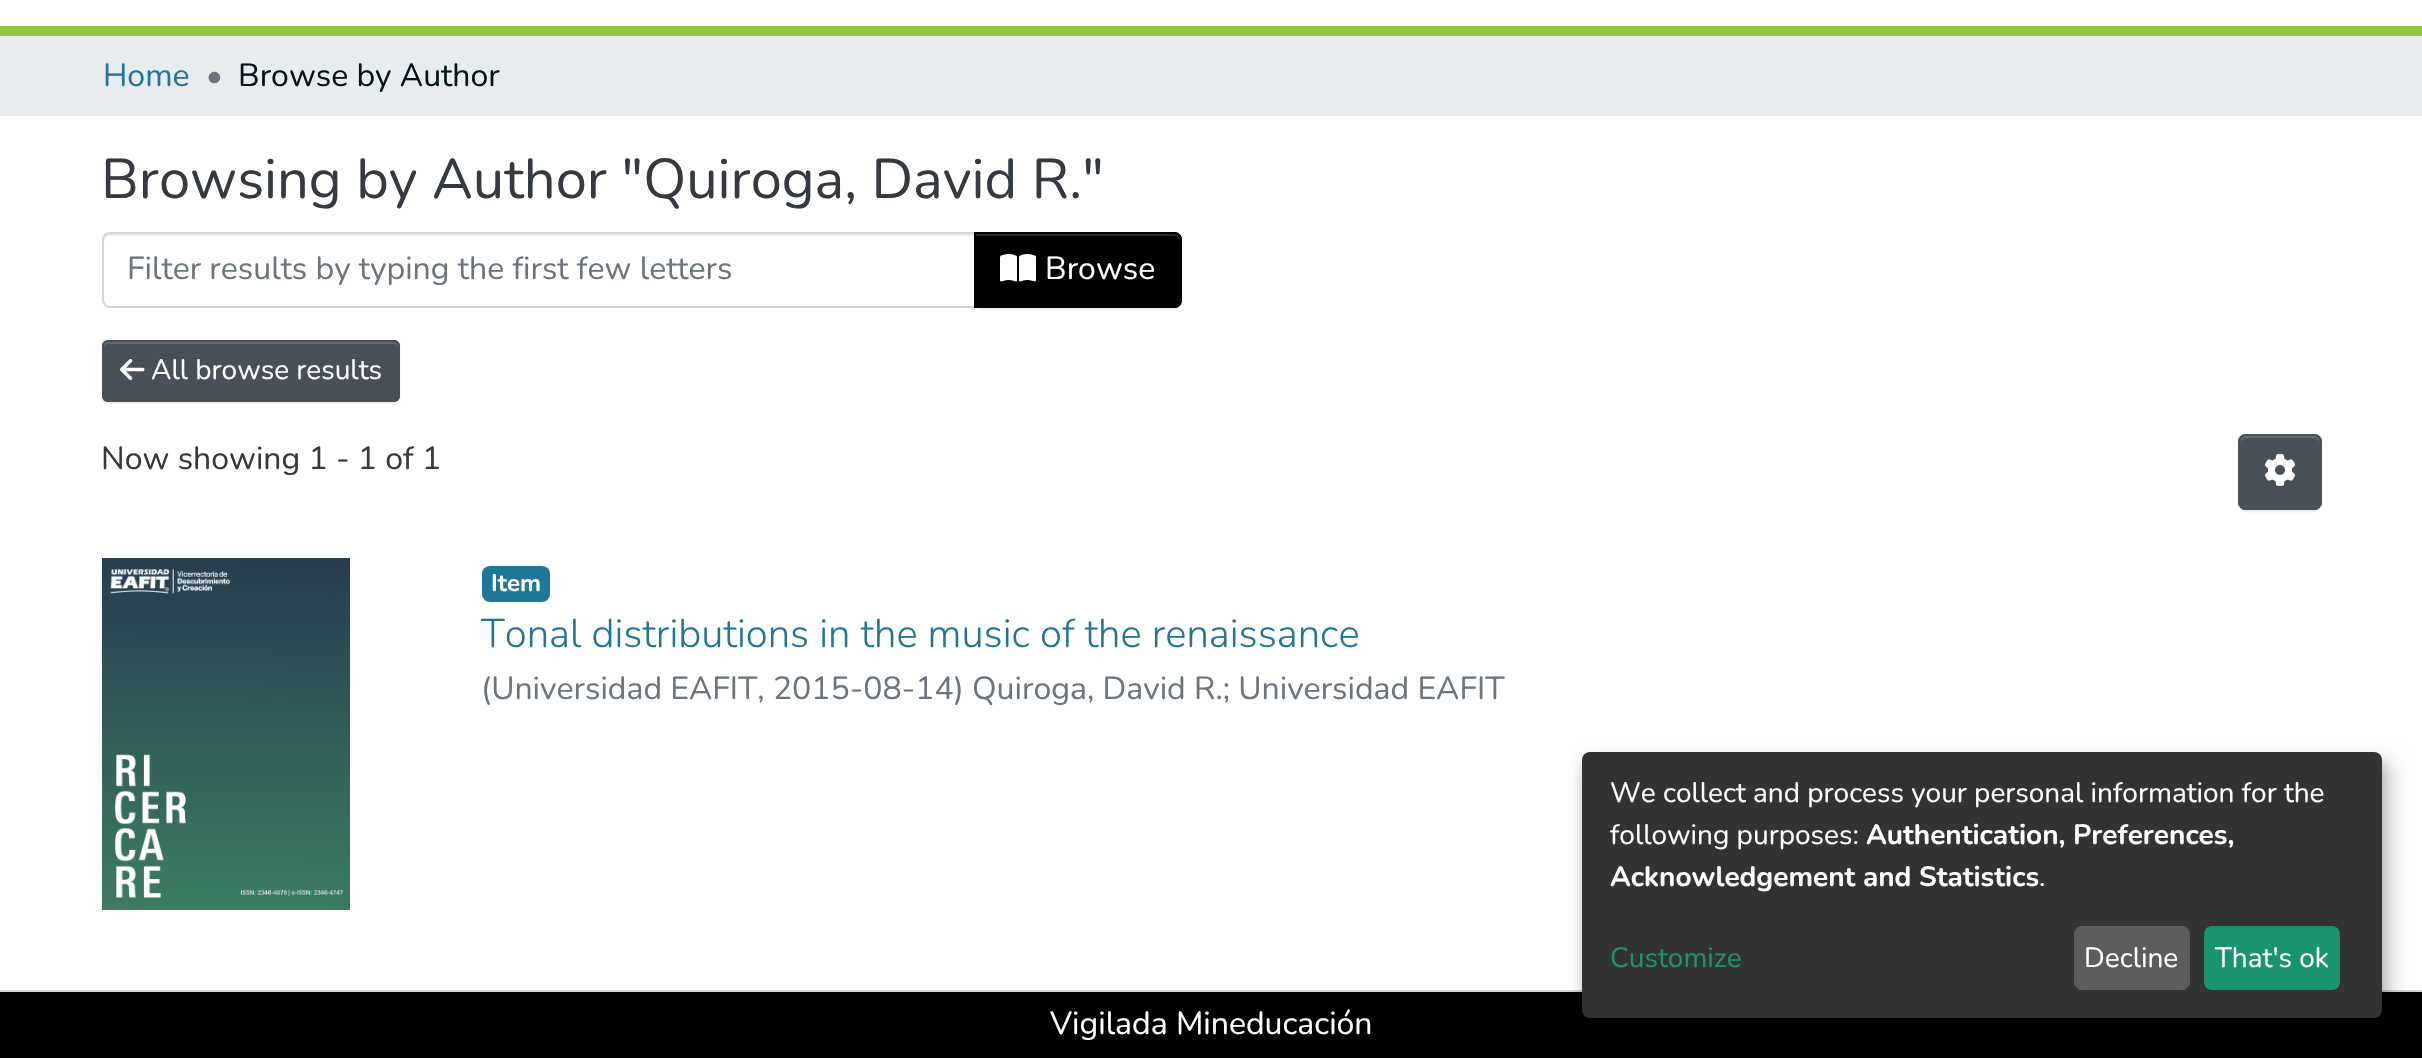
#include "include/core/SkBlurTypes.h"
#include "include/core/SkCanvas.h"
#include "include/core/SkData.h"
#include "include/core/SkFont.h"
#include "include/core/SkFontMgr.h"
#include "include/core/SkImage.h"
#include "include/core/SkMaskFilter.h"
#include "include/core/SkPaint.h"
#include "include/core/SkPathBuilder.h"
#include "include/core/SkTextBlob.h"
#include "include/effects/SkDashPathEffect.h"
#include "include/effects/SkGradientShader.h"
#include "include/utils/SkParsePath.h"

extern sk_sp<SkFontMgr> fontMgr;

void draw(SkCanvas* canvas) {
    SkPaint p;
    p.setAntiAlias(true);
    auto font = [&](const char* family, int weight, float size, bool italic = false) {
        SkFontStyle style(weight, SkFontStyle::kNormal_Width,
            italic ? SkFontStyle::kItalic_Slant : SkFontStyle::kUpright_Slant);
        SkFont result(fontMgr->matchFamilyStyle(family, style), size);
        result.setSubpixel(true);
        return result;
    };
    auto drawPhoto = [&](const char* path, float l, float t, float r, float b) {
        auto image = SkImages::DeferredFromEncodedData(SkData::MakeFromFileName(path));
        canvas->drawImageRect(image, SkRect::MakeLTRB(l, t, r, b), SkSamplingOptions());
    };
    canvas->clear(0xFFFFFFFF);
    p.setColor(0xFF92C642);
    canvas->drawRect(SkRect::MakeLTRB(0, 26, 2422, 36), p);
    p.setColor(0xFFE9ECEF);
    canvas->drawRect(SkRect::MakeLTRB(0, 36, 2422, 116), p);
    auto font1 = font("Nunito", 400, 32);
    p.setColor(0xFF207698);
    canvas->drawString("Home", 103, 86, font1, p);
    p.setColor(0xFF6C757D);
    canvas->drawString("•", 206, 86, font1, p);
    p.setColor(0xFF05141A);
    canvas->drawString("Browse by Author", 238, 86, font1, p);
    auto font2 = font("Nunito", 400, 56);
    p.setColor(0xFF343A40);
    canvas->drawString("Browsing by Author \"Quiroga, David R.\"", 101, 198, font2, p);
    p.setColor(0xFFECECEC);
    canvas->drawPath(SkPathBuilder().moveTo(110, 236).lineTo(974, 236).lineTo(974, 234).lineTo(110, 234).cubicTo(105, 234, 104, 238, 104, 242).cubicTo(104, 239, 107, 236, 110, 236).close().detach(), p);
    p.setStyle(SkPaint::kStroke_Style);
    p.setStrokeWidth(2);
    p.setColor(0xFFCED4DA);
    canvas->drawPath(SkPathBuilder().moveTo(110, 233).lineTo(975, 233).lineTo(975, 307).lineTo(110, 307).cubicTo(106, 307, 103, 304, 103, 300).lineTo(103, 240).cubicTo(103, 236, 106, 233, 110, 233).close().detach(), p);
    p.setStyle(SkPaint::kFill_Style);
    p.setColor(0xFF6C757D);
    canvas->drawString("Filter results by typing the first few letters", 127, 279, font1, p);
    p.setColor(0x12000000);
    p.setMaskFilter(SkMaskFilter::MakeBlur(kNormal_SkBlurStyle, 1));
    canvas->drawRoundRect(SkRect::MakeLTRB(974, 234, 1182, 310), 8, 8, p);
    p.setMaskFilter(nullptr);
    p.setColor(0xFF000000);
    canvas->drawPath(SkPathBuilder().moveTo(974, 232).lineTo(1174, 232).cubicTo(1178.5f, 232, 1182, 235.5f, 1182, 240).lineTo(1182, 300).cubicTo(1182, 304.5f, 1178.5f, 308, 1174, 308).lineTo(974, 308).close().detach(), p);
    p.setColor(0xFF262626);
    canvas->drawPath(SkPathBuilder().moveTo(976, 236).lineTo(1174, 236).cubicTo(1177, 236, 1180, 239, 1180, 242).lineTo(1180, 240).cubicTo(1180, 237, 1177, 234, 1174, 234).lineTo(976, 234).close().detach(), p);
    p.setStyle(SkPaint::kStroke_Style);
    p.setColor(0xFF000000);
    canvas->drawPath(SkPathBuilder().moveTo(975, 233).lineTo(1174, 233).cubicTo(1178, 233, 1181, 236, 1181, 240).lineTo(1181, 300).cubicTo(1181, 304, 1178, 307, 1174, 307).lineTo(975, 307).close().detach(), p);
    drawPhoto("media/1.png", 1000, 254, 1036, 282);
    p.setStyle(SkPaint::kFill_Style);
    p.setColor(0xFFFFFFFF);
    canvas->drawString("Browse", 1045, 279, font1, p);
    p.setColor(0x12000000);
    p.setMaskFilter(SkMaskFilter::MakeBlur(kNormal_SkBlurStyle, 1));
    canvas->drawRoundRect(SkRect::MakeLTRB(102, 342, 400, 404), 6, 6, p);
    p.setMaskFilter(nullptr);
    p.setColor(0xFF495057);
    canvas->drawRoundRect(SkRect::MakeLTRB(102, 340, 400, 402), 6, 6, p);
    p.setColor(0xFF646A70);
    canvas->drawPath(SkPathBuilder().moveTo(108, 344).lineTo(394, 344).cubicTo(396, 344, 398, 346, 398, 348).lineTo(398, 346).cubicTo(398, 344, 396, 342, 394, 342).lineTo(108, 342).cubicTo(106, 342, 104, 344, 104, 346).lineTo(104, 348).cubicTo(104, 346, 106, 344, 108, 344).close().detach(), p);
    p.setStyle(SkPaint::kStroke_Style);
    p.setColor(0xFF495057);
    canvas->drawRoundRect(SkRect::MakeLTRB(103, 341, 399, 401), 5, 5, p);
    drawPhoto("media/2.png", 120, 359, 145, 380);
    auto font3 = font("Nunito", 400, 28);
    p.setStyle(SkPaint::kFill_Style);
    p.setColor(0xFFFFFFFF);
    canvas->drawString("All browse results", 151, 379, font3, p);
    p.setColor(0xFF343A40);
    canvas->drawString("Now showing 1 - 1 of 1", 101, 469, font1, p);
    p.setColor(0x12000000);
    p.setMaskFilter(SkMaskFilter::MakeBlur(kNormal_SkBlurStyle, 1));
    canvas->drawRoundRect(SkRect::MakeLTRB(2238, 436, 2322, 512), 8, 8, p);
    p.setMaskFilter(nullptr);
    p.setColor(0xFF495057);
    canvas->drawRoundRect(SkRect::MakeLTRB(2238, 434, 2322, 510), 8, 8, p);
    p.setColor(0xFF646A70);
    canvas->drawPath(SkPathBuilder().moveTo(2246, 438).lineTo(2314, 438).cubicTo(2317, 438, 2320, 441, 2320, 444).cubicTo(2320, 433, 2311, 436, 2303, 436).lineTo(2257, 436).cubicTo(2249, 436, 2240, 433, 2240, 444).cubicTo(2240, 441, 2243, 438, 2246, 438).close().detach(), p);
    p.setStyle(SkPaint::kStroke_Style);
    p.setColor(0xFF495057);
    canvas->drawRoundRect(SkRect::MakeLTRB(2239, 435, 2321, 509), 7, 7, p);
    drawPhoto("media/3.png", 2265, 454, 2295, 486);
    drawPhoto("media/4.png", 102, 558, 350, 910);
    p.setStyle(SkPaint::kFill_Style);
    p.setColor(0xFF207698);
    canvas->drawRoundRect(SkRect::MakeLTRB(482, 566, 550, 602), 8, 8, p);
    auto font4 = font("Nunito", 700, 24);
    p.setColor(0xFFFFFFFF);
    canvas->drawString("Item", 491, 591, font4, p);
    auto font5 = font("Nunito", 300, 40);
    p.setColor(0xFF207698);
    canvas->drawString("Tonal distributions in the music of the renaissance", 481, 647, font5, p);
    p.setColor(0xFF6C757D);
    canvas->drawString("(Universidad EAFIT, 2015-08-14) Quiroga, David R.; Universidad EAFIT", 481, 699, font1, p);
    p.setColor(0xFF000000);
    canvas->drawRect(SkRect::MakeLTRB(0, 992, 2422, 1058), p);
    p.setColor(0xFFCED4DA);
    canvas->drawRect(SkRect::MakeLTRB(0, 990, 2422, 992), p);
    p.setColor(0xFFFFFFFF);
    canvas->drawString("Vigilada Mineducación", 1050, 1034, font1, p);
    p.setColor(0x30000000);
    p.setMaskFilter(SkMaskFilter::MakeBlur(kNormal_SkBlurStyle, 10));
    canvas->drawRoundRect(SkRect::MakeLTRB(1592, 762, 2392, 1028), 8, 8, p);
    p.setMaskFilter(nullptr);
    p.setColor(0x33000000);
    p.setMaskFilter(SkMaskFilter::MakeBlur(kNormal_SkBlurStyle, 6));
    canvas->drawRoundRect(SkRect::MakeLTRB(1582, 760, 2382, 1026), 8, 8, p);
    p.setMaskFilter(nullptr);
    p.setColor(0xFF333333);
    canvas->drawRoundRect(SkRect::MakeLTRB(1582, 752, 2382, 1018), 8, 8, p);
    p.setColor(0xFFFFFFFF);
    canvas->drawString("We collect and process your personal information for the", 1610, 802, font3, p);
    canvas->drawString("following purposes:", 1610, 844, font3, p);
    auto font6 = font("Nunito", 700, 28);
    canvas->drawString("Authentication, Preferences,", 1866, 844, font6, p);
    canvas->drawString("Acknowledgement and Statistics", 1610, 886, font6, p);
    canvas->drawString(".", 2039, 886, font3, p);
    p.setColor(0xFF1A936F);
    canvas->drawString("Customize", 1610, 967, font3, p);
    p.setColor(0xFF5C5C5C);
    canvas->drawRoundRect(SkRect::MakeLTRB(2074, 926, 2190, 990), 8, 8, p);
    p.setColor(0xFFFFFFFF);
    canvas->drawString("Decline", 2084, 967, font3, p);
    p.setColor(0xFF1A936F);
    canvas->drawRoundRect(SkRect::MakeLTRB(2204, 926, 2340, 990), 8, 8, p);
    p.setColor(0xFFFFFFFF);
    canvas->drawString("That's ok", 2215, 967, font3, p);
}
